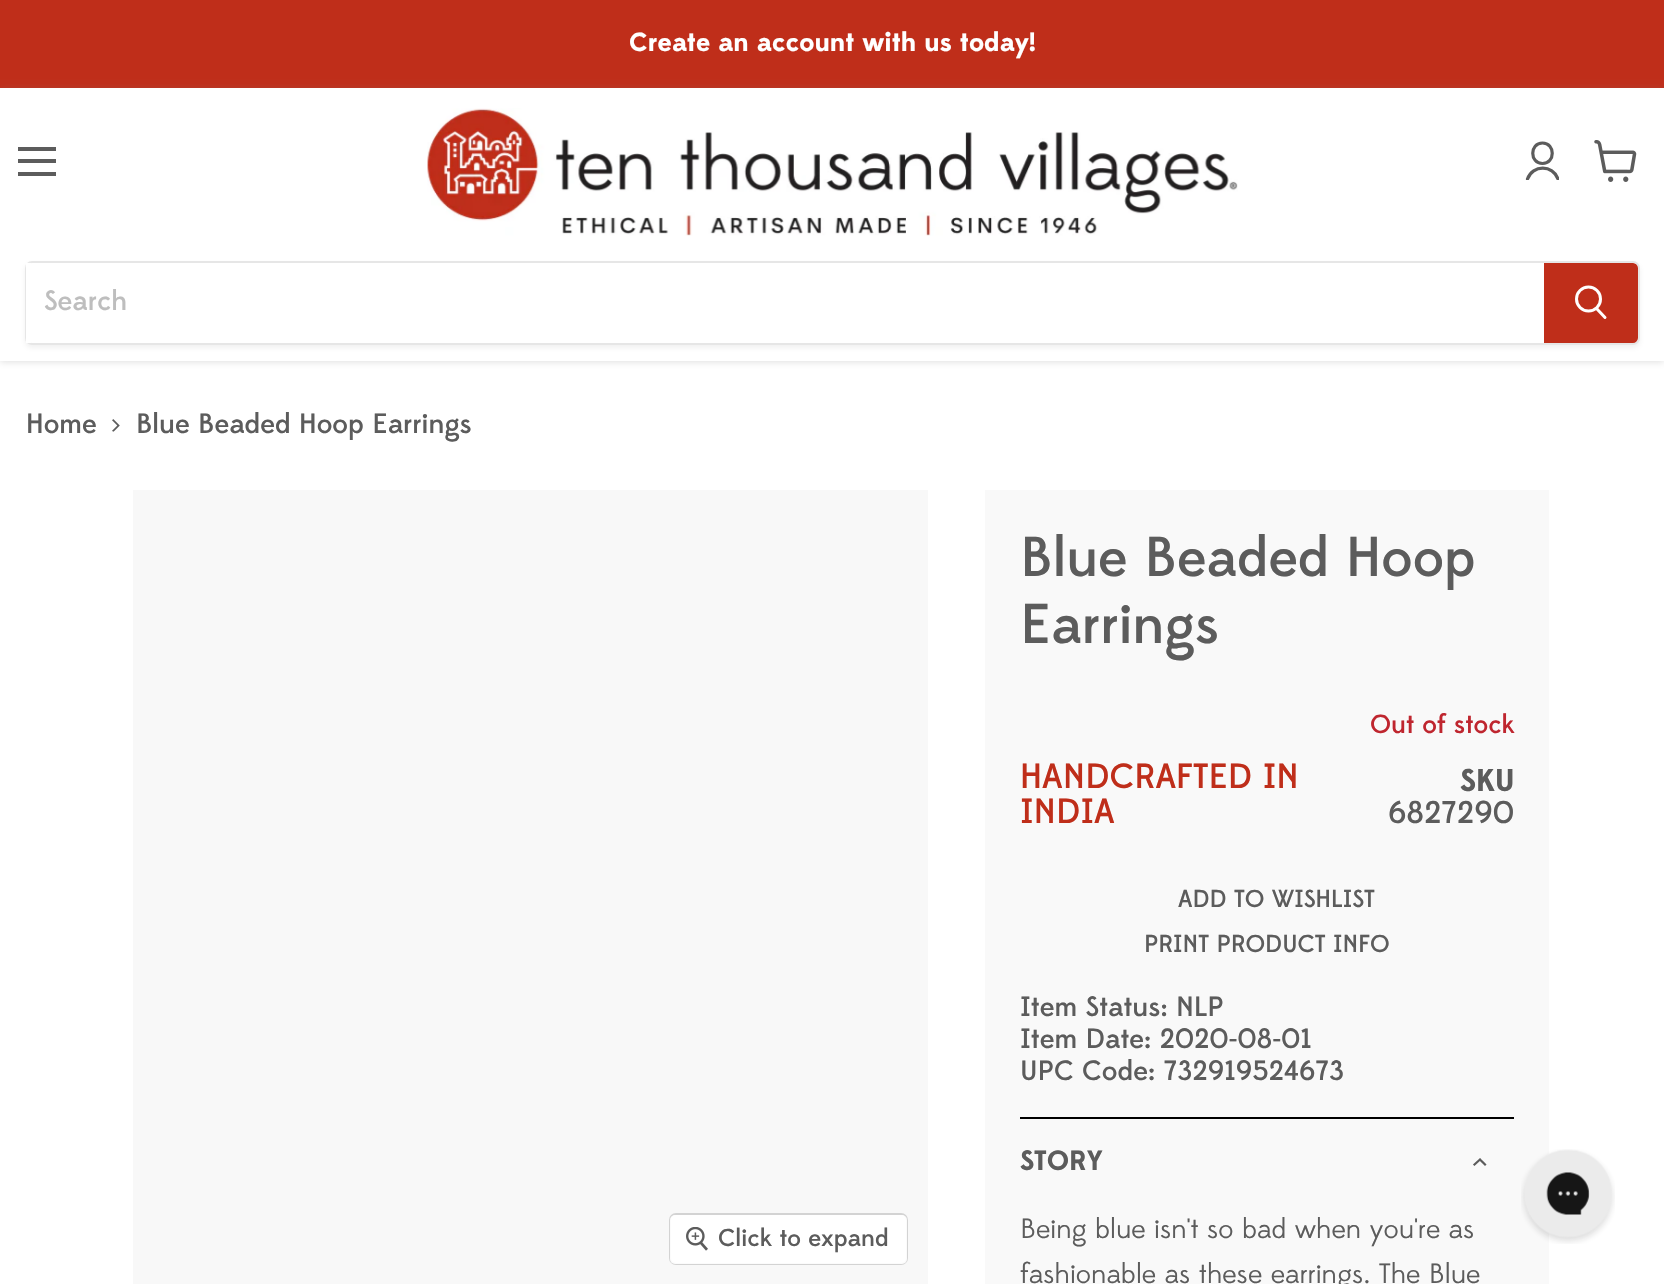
#include "include/core/SkBlurTypes.h"
#include "include/core/SkCanvas.h"
#include "include/core/SkData.h"
#include "include/core/SkFont.h"
#include "include/core/SkFontMgr.h"
#include "include/core/SkImage.h"
#include "include/core/SkMaskFilter.h"
#include "include/core/SkPaint.h"
#include "include/core/SkPathBuilder.h"
#include "include/core/SkTextBlob.h"
#include "include/effects/SkDashPathEffect.h"
#include "include/effects/SkGradientShader.h"
#include "include/utils/SkParsePath.h"

extern sk_sp<SkFontMgr> fontMgr;

void draw(SkCanvas* canvas) {
    SkPaint p;
    p.setAntiAlias(true);
    auto font = [&](const char* family, int weight, float size, bool italic = false) {
        SkFontStyle style(weight, SkFontStyle::kNormal_Width,
            italic ? SkFontStyle::kItalic_Slant : SkFontStyle::kUpright_Slant);
        SkFont result(fontMgr->matchFamilyStyle(family, style), size);
        result.setSubpixel(true);
        return result;
    };
    auto drawPhoto = [&](const char* path, float l, float t, float r, float b) {
        auto image = SkImages::DeferredFromEncodedData(SkData::MakeFromFileName(path));
        canvas->drawImageRect(image, SkRect::MakeLTRB(l, t, r, b), SkSamplingOptions());
    };
    canvas->clear(0xFFFFFFFF);
    p.setColor(0xFFBF2E1A);
    canvas->drawRect(SkRect::MakeLTRB(0, 0, 1664, 88), p);
    auto font1 = font("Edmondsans", 700, 26.25f);
    p.setColor(0xFFFFFFFF);
    canvas->drawString("Create an account with us today!", 629, 51, font1, p);
    p.setColor(0x40808080);
    p.setMaskFilter(SkMaskFilter::MakeBlur(kNormal_SkBlurStyle, 3.5f));
    canvas->drawRect(SkRect::MakeLTRB(0, 89, 1664, 362), p);
    p.setMaskFilter(nullptr);
    p.setColor(0xFFFFFFFF);
    canvas->drawRect(SkRect::MakeLTRB(0, 88, 1664, 361), p);
    p.setStyle(SkPaint::kStroke_Style);
    p.setStrokeWidth(3.2f);
    p.setStrokeCap(SkPaint::kRound_Cap);
    p.setStrokeJoin(SkPaint::kRound_Join);
    p.setColor(0xFF5C5C5C);
    canvas->drawPath(SkPathBuilder().moveTo(1542.5f, 163.5f).cubicTo(1555.5f, 163.5f, 1555.5f, 143, 1542.5f, 143).cubicTo(1529.5f, 143, 1529.5f, 163.5f, 1542.5f, 163.5f).close().detach(), p);
    canvas->save();
    canvas->clipRect(SkRect::MakeLTRB(1524, 140, 1559, 180));
    canvas->drawPath(SkPathBuilder().moveTo(1558, 179).cubicTo(1553, 164.5f, 1532.5f, 164.5f, 1527.5f, 179).detach(), p);
    canvas->restore();
    drawPhoto("media/1.png", 1594, 140, 1637, 182);
    p.setStyle(SkPaint::kFill_Style);
    {
        const struct { float l, t, r, b; SkColor color; } items[] = {
            {18, 147, 56, 151, 0xFF5C5C5C},
            {18, 159, 56, 163, 0xFF5C5C5C},
            {18, 172, 56, 176, 0xFF5C5C5C},
        };
        for (auto [l, t, r, b, color] : items) {
            p.setColor(color);
            canvas->drawRect(SkRect::MakeLTRB(l, t, r, b), p);
        }
    }
    drawPhoto("media/2.png", 427, 108, 1238, 236);
    canvas->save();
    canvas->clipPath(SkPathBuilder(SkPathFillType::kEvenOdd).moveTo(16, 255).lineTo(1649, 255).lineTo(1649, 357).lineTo(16, 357).close().moveTo(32, 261).lineTo(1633, 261).cubicTo(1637, 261, 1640, 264, 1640, 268).lineTo(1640, 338).cubicTo(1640, 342, 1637, 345, 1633, 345).lineTo(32, 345).cubicTo(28, 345, 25, 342, 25, 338).lineTo(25, 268).cubicTo(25, 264, 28, 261, 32, 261).close().detach(), true);
    p.setColor(0x1C808080);
    p.setMaskFilter(SkMaskFilter::MakeBlur(kNormal_SkBlurStyle, 2.5f));
    canvas->drawRoundRect(SkRect::MakeLTRB(25, 264, 1640, 348), 7, 7, p);
    p.setMaskFilter(nullptr);
    canvas->restore();
    p.setStyle(SkPaint::kStroke_Style);
    p.setStrokeWidth(2);
    p.setStrokeCap(SkPaint::kButt_Cap);
    p.setStrokeJoin(SkPaint::kMiter_Join);
    p.setColor(0x33808080);
    canvas->drawRoundRect(SkRect::MakeLTRB(26, 262, 1639, 344), 6, 6, p);
    p.setStyle(SkPaint::kFill_Style);
    p.setColor(0xFFFFFFFF);
    canvas->drawRect(SkRect::MakeLTRB(26, 263, 31, 343), p);
    auto font2 = font("Edmondsans", 500, 28);
    p.setColor(0xFFBEBEBE);
    canvas->drawString("Search", 44, 310, font2, p);
    p.setColor(0xFFBF2E1A);
    canvas->drawPath(SkPathBuilder().moveTo(1545, 264).lineTo(1633, 264).cubicTo(1635, 264, 1637, 266, 1637, 268).lineTo(1637, 338).cubicTo(1637, 340, 1635, 342, 1633, 342).lineTo(1545, 342).close().detach(), p);
    p.setStyle(SkPaint::kStroke_Style);
    canvas->drawPath(SkPathBuilder().moveTo(1545, 264).lineTo(1633, 264).cubicTo(1635, 264, 1637, 266, 1637, 268).lineTo(1637, 338).cubicTo(1637, 340, 1635, 342, 1633, 342).lineTo(1545, 342).close().detach(), p);
    p.setStrokeWidth(3);
    p.setStrokeCap(SkPaint::kRound_Cap);
    p.setColor(0xFFFFFFFF);
    canvas->drawPath(SkPathBuilder().moveTo(1605, 317.5f).lineTo(1597, 309).detach(), p);
    p.setStrokeCap(SkPaint::kButt_Cap);
    canvas->drawCircle(1588.5f, 299, 12, p);
    p.setStyle(SkPaint::kFill_Style);
    p.setColor(0xFF5C5C5C);
    canvas->drawString("Home", 26, 433, font2, p);
    drawPhoto("media/3.png", 112, 419, 120, 432);
    canvas->drawString("Blue Beaded Hoop Earrings", 136, 433, font2, p);
    p.setColor(0xFFF8F8F8);
    canvas->drawRect(SkRect::MakeLTRB(133, 490, 928, 1284), p);
    p.setStyle(SkPaint::kStroke_Style);
    p.setStrokeWidth(2);
    p.setColor(0xFFD3D3D3);
    canvas->drawRoundRect(SkRect::MakeLTRB(670, 1214, 907, 1264), 6, 6, p);
    p.setStyle(SkPaint::kFill_Style);
    p.setColor(0xE6FFFFFF);
    canvas->drawRoundRect(SkRect::MakeLTRB(670, 1215, 907, 1264), 5, 5, p);
    drawPhoto("media/4.png", 686, 1227, 708, 1251);
    auto font3 = font("Edmondsans", 500, 24.5f);
    p.setColor(0xFF5C5C5C);
    canvas->drawString("Click to expand", 718, 1246, font3, p);
    p.setColor(0xFFF9F9F9);
    canvas->drawRect(SkRect::MakeLTRB(985, 490, 1549, 1284), p);
    auto font4 = font("Edmondsans", 500, 56);
    p.setColor(0xFF5C5C5C);
    canvas->drawString("Blue Beaded Hoop", 1020, 576, font4, p);
    canvas->drawString("Earrings", 1020, 643, font4, p);
    auto font5 = font("Edmondsans", 500, 35);
    p.setColor(0xFFBF2E1A);
    canvas->drawString("HANDCRAFTED IN", 1020, 788, font5, p);
    canvas->drawString("INDIA", 1020, 823, font5, p);
    auto font6 = font("Edmondsans", 500, 26.25f);
    p.setColor(0xFFBF262F);
    canvas->drawString("Out of stock", 1370, 733, font6, p);
    auto font7 = font("Edmondsans", 700, 31.5f);
    p.setColor(0xFF5C5C5C);
    canvas->drawString("SKU", 1460, 791, font7, p);
    auto font8 = font("Edmondsans", 500, 31.5f);
    canvas->drawString("6827290", 1388, 823, font8, p);
    canvas->drawString("ADD TO WISHLIST", 1178, 907, font3, p);
    canvas->drawString("PRINT PRODUCT INFO", 1144, 952, font3, p);
    {
        const struct { const char* s; float x, y; } items[] = {
            {"Item Status: NLP", 1020, 1016},
            {"Item Date: 2020-08-01", 1020, 1048},
            {"UPC Code: 732919524673", 1020, 1080},
        };
        for (auto [s, x, y] : items) {
            canvas->drawString(s, x, y, font2, p);
        }
    }
    p.setColor(0xFF000000);
    canvas->drawRect(SkRect::MakeLTRB(1020, 1117, 1514, 1119), p);
    auto font9 = font("Edmondsans", 700, 28);
    p.setColor(0xFF5C5C5C);
    canvas->drawString("STORY", 1020, 1170, font9, p);
    p.setStyle(SkPaint::kStroke_Style);
    p.setStrokeWidth(2.2f);
    p.setStrokeCap(SkPaint::kSquare_Cap);
    canvas->drawPath(SkPathBuilder().moveTo(1480, 1159.5f).lineTo(1474.5f, 1164.5f).moveTo(1480, 1159.5f).lineTo(1485, 1164.5f).detach(), p);
    auto font10 = font("Edmondsans", 400, 28);
    p.setStyle(SkPaint::kFill_Style);
    canvas->drawString("Being blue isn't so bad when you're as", 1020, 1238, font10, p);
    canvas->drawString("fashionable as these earrings. The Blue", 1020, 1283, font10, p);
    drawPhoto("media/5.png", 1521, 1149, 1615, 1244);
}
